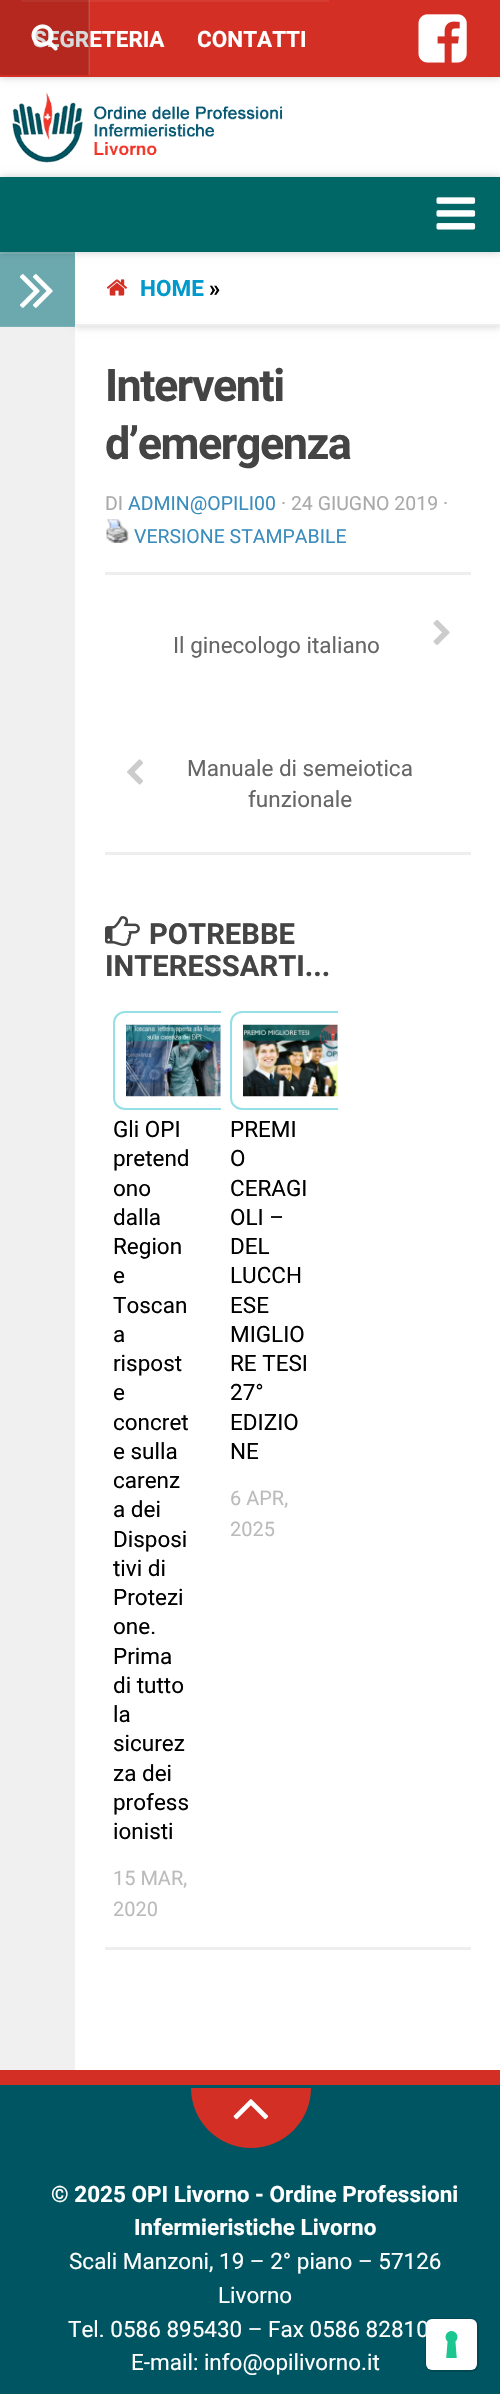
#include "include/core/SkBlurTypes.h"
#include "include/core/SkCanvas.h"
#include "include/core/SkData.h"
#include "include/core/SkFont.h"
#include "include/core/SkFontMgr.h"
#include "include/core/SkImage.h"
#include "include/core/SkMaskFilter.h"
#include "include/core/SkPaint.h"
#include "include/core/SkPathBuilder.h"
#include "include/core/SkTextBlob.h"
#include "include/effects/SkDashPathEffect.h"
#include "include/effects/SkGradientShader.h"
#include "include/utils/SkParsePath.h"

extern sk_sp<SkFontMgr> fontMgr;

void draw(SkCanvas* canvas) {
    SkPaint p;
    p.setAntiAlias(true);
    auto font = [&](const char* family, int weight, float size, bool italic = false) {
        SkFontStyle style(weight, SkFontStyle::kNormal_Width,
            italic ? SkFontStyle::kItalic_Slant : SkFontStyle::kUpright_Slant);
        SkFont result(fontMgr->matchFamilyStyle(family, style), size);
        result.setSubpixel(true);
        return result;
    };
    auto drawTracked = [&](const char* s, float x, float y, const SkFont& font, const SkPaint& ink, float letter, float word) {
        std::vector<SkGlyphID> glyphs(font.countText(s, strlen(s), SkTextEncoding::kUTF8));
        std::vector<float> xs(glyphs.size());
        font.textToGlyphs(s, strlen(s), SkTextEncoding::kUTF8, glyphs);
        font.getXPos(glyphs, xs, x);
        float extra = 0;
        for (size_t i = 0; i < glyphs.size(); i++) {
            xs[i] += extra;
            extra += letter + word * (glyphs[i] == font.unicharToGlyph(' '));
        }
        canvas->drawTextBlob(SkTextBlob::MakeFromPosHGlyphs(glyphs, xs, y, font), 0, 0, ink);
    };
    auto drawPhoto = [&](const char* path, float l, float t, float r, float b) {
        auto image = SkImages::DeferredFromEncodedData(SkData::MakeFromFileName(path));
        canvas->drawImageRect(image, SkRect::MakeLTRB(l, t, r, b), SkSamplingOptions());
    };
    canvas->clear(0xFFD42F25);
    p.setColor(0xFFFFFFFF);
    canvas->drawRect(SkRect::MakeLTRB(0, 77, 500, 177), p);
    p.setColor(0x33000000);
    p.setMaskFilter(SkMaskFilter::MakeBlur(kNormal_SkBlurStyle, 4));
    canvas->drawRect(SkRect::MakeLTRB(0, 0, 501, 77), p);
    p.setMaskFilter(nullptr);
    {
        const struct { float l, t, r, b; SkColor color; } items[] = {
            {0, 0, 500, 77, 0xFFD42F25},
            {21, 0, 329, 2, 0xFFD73B32},
            {88, 0, 90, 75, 0x1AFFFFFF},
        };
        for (auto [l, t, r, b, color] : items) {
            p.setColor(color);
            canvas->drawRect(SkRect::MakeLTRB(l, t, r, b), p);
        }
    }
    auto font1 = font("Roboto", 700, 22.5f);
    p.setColor(0xFFFFFFFF);
    canvas->drawString("SEGRETERIA", 33, 47, font1, p);
    p.setColor(0x26000000);
    canvas->drawRect(SkRect::MakeLTRB(0, 0, 89, 75), p);
    drawPhoto("media/1.png", 31, 24, 58, 51);
    drawPhoto("media/2.png", 418, 14, 467, 63);
    p.setColor(0xFFFFFFFF);
    canvas->drawString("CONTATTI", 197, 47, font1, p);
    drawPhoto("media/3.png", 12, 92, 282, 163);
    canvas->drawRect(SkRect::MakeLTRB(75, 326, 500, 2070), p);
    p.setColor(0xFFF0F0F0);
    canvas->drawRect(SkRect::MakeLTRB(0, 327, 75, 2070), p);
    p.setColor(0x33000000);
    p.setMaskFilter(SkMaskFilter::MakeBlur(kNormal_SkBlurStyle, 4));
    canvas->drawRect(SkRect::MakeLTRB(75, 252, 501, 326), p);
    p.setMaskFilter(nullptr);
    {
        const struct { float l, t, r, b; SkColor color; } items[] = {
            {0, 252, 75, 327, 0xFF6CA9AF},
            {0, 252, 75, 254, 0x26FFFFFF},
            {75, 252, 500, 324, 0xFFFFFFFF},
        };
        for (auto [l, t, r, b, color] : items) {
            p.setColor(color);
            canvas->drawRect(SkRect::MakeLTRB(l, t, r, b), p);
        }
    }
    p.setColor(0x33000000);
    p.setMaskFilter(SkMaskFilter::MakeBlur(kNormal_SkBlurStyle, 4));
    canvas->drawRect(SkRect::MakeLTRB(0, 177, 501, 252), p);
    p.setMaskFilter(nullptr);
    p.setColor(0xFF006666);
    canvas->drawRect(SkRect::MakeLTRB(0, 177, 500, 252), p);
    drawPhoto("media/4.png", 436, 197, 476, 230);
    p.setColor(0x1AFFFFFF);
    canvas->drawRect(SkRect::MakeLTRB(0, 326, 75, 327), p);
    drawPhoto("media/5.png", 20, 274, 53, 308);
    p.setColor(0xFFEEEEEE);
    canvas->drawRect(SkRect::MakeLTRB(75, 324, 500, 326), p);
    drawPhoto("media/6.png", 106, 279, 127, 296);
    p.setColor(0xFF0099CC);
    canvas->drawString("HOME", 140, 296, font1, p);
    p.setColor(0xFF000000);
    canvas->drawString("»", 209, 296, font1, p);
    auto font2 = font("Roboto", 700, 45);
    p.setColor(0xFF444444);
    drawTracked("Interventi", 105, 401, font2, p, -1.5f, 0);
    drawTracked("d’emergenza", 105, 459, font2, p, -1.5f, 0);
    auto font3 = font("Roboto", 400, 19.5f);
    p.setColor(0xFFAAAAAA);
    canvas->drawString("DI", 105, 510, font3, p);
    p.setColor(0xFF3B8DBD);
    canvas->drawString("ADMIN@OPILI00", 128, 510, font3, p);
    p.setColor(0xFFAAAAAA);
    canvas->drawString("· 24 GIUGNO 2019 ·", 281, 510, font3, p);
    drawPhoto("media/7.png", 106, 519, 129, 543);
    p.setColor(0xFF3B8DBD);
    canvas->drawString("VERSIONE STAMPABILE", 134, 543, font3, p);
    p.setColor(0xFFEEEEEE);
    canvas->drawRect(SkRect::MakeLTRB(105, 572, 471, 575), p);
    canvas->drawRect(SkRect::MakeLTRB(105, 852, 471, 855), p);
    auto font4 = font("Roboto", 400, 22.5f);
    p.setColor(0xFF666666);
    canvas->drawString("Il ginecologo italiano", 173, 653, font4, p);
    drawPhoto("media/8.png", 433, 620, 450, 645);
    drawPhoto("media/9.png", 127, 759, 143, 785);
    canvas->drawString("Manuale di semeiotica", 187, 776, font4, p);
    canvas->drawString("funzionale", 248, 807, font4, p);
    drawPhoto("media/10.png", 105, 916, 140, 946);
    auto font5 = font("Roboto", 700, 29.25f);
    p.setColor(0xFF444444);
    canvas->drawString("POTREBBE", 149, 944, font5, p);
    canvas->drawString("INTERESSARTI...", 105, 976, font5, p);
    p.setColor(0xFFEEEEEE);
    canvas->drawRect(SkRect::MakeLTRB(105, 1947, 471, 1950), p);
    canvas->save();
    canvas->clipRect(SkRect::MakeLTRB(113, 1011, 221, 1947));
    p.setStyle(SkPaint::kStroke_Style);
    p.setStrokeWidth(2);
    p.setColor(0xFF95DFE6);
    canvas->drawRoundRect(SkRect::MakeLTRB(114, 1012, 235, 1109), 11, 11, p);
    canvas->restore();
    drawPhoto("media/11.png", 126, 1024, 221, 1097);
    p.setStyle(SkPaint::kFill_Style);
    p.setColor(0xFF000000);
    {
        const struct { const char* s; float x, y; } items[] = {
            {"Gli OPI", 113, 1137},
            {"pretend", 113, 1166},
            {"ono", 113, 1196},
            {"dalla", 113, 1225},
            {"Region", 113, 1254},
            {"e", 113, 1283},
            {"Toscan", 113, 1313},
            {"a", 113, 1342},
            {"rispost", 113, 1371},
            {"e", 113, 1400},
            {"concret", 113, 1430},
            {"e sulla", 113, 1459},
            {"carenz", 113, 1488},
            {"a dei", 113, 1517},
            {"Disposi", 113, 1547},
            {"tivi di", 113, 1576},
            {"Protezi", 113, 1605},
            {"one.", 113, 1634},
            {"Prima", 113, 1664},
            {"di tutto", 113, 1693},
            {"la", 113, 1722},
            {"sicurez", 113, 1751},
            {"za dei", 113, 1781},
            {"profess", 113, 1810},
            {"ionisti", 113, 1839},
        };
        for (auto [s, x, y] : items) {
            canvas->drawString(s, x, y, font4, p);
        }
    }
    auto font6 = font("Roboto", 400, 20);
    p.setColor(0xFFBBBBBB);
    canvas->drawString("15 MAR,", 113, 1885, font6, p);
    canvas->drawString("2020", 113, 1916, font6, p);
    canvas->save();
    canvas->clipRect(SkRect::MakeLTRB(230, 1011, 338, 1566));
    p.setStyle(SkPaint::kStroke_Style);
    p.setColor(0xFF95DFE6);
    canvas->drawRoundRect(SkRect::MakeLTRB(231, 1012, 352, 1109), 11, 11, p);
    canvas->restore();
    drawPhoto("media/12.png", 243, 1024, 338, 1097);
    p.setStyle(SkPaint::kFill_Style);
    p.setColor(0xFF000000);
    {
        const struct { const char* s; float x, y; } items[] = {
            {"PREMI", 230, 1137},
            {"O", 230, 1166},
            {"CERAGI", 230, 1196},
            {"OLI –", 230, 1225},
            {"DEL", 230, 1254},
            {"LUCCH", 230, 1283},
            {"ESE", 230, 1313},
            {"MIGLIO", 230, 1342},
            {"RE TESI", 230, 1371},
            {"27°", 230, 1400},
            {"EDIZIO", 230, 1430},
            {"NE", 230, 1459},
        };
        for (auto [s, x, y] : items) {
            canvas->drawString(s, x, y, font4, p);
        }
    }
    p.setColor(0xFFBBBBBB);
    canvas->drawString("6 APR,", 230, 1505, font6, p);
    canvas->drawString("2025", 230, 1536, font6, p);
    p.setColor(0xFF005562);
    canvas->drawRect(SkRect::MakeLTRB(0, 2085, 500, 2394), p);
    p.setColor(0xFFD42F25);
    canvas->drawPath(SkPathBuilder().moveTo(191, 2088).lineTo(311, 2088).cubicTo(311, 2121, 284, 2148, 251, 2148).cubicTo(218, 2148, 191, 2121, 191, 2088).close().detach(), p);
    drawPhoto("media/13.png", 233, 2099, 269, 2120);
    p.setColor(0xFFFFFFFF);
    canvas->drawString("© 2025 OPI Livorno - Ordine Professioni", 51, 2202, font1, p);
    canvas->drawString("Infermieristiche Livorno", 134, 2235, font1, p);
    {
        const struct { const char* s; float x, y; } items[] = {
            {"Scali Manzoni, 19 – 2° piano – 57126", 69, 2269},
            {"Livorno", 218, 2303},
            {"Tel. 0586 895430 – Fax 0586 82810", 68, 2337},
            {"E-mail: info@opilivorno.it", 131, 2370},
        };
        for (auto [s, x, y] : items) {
            canvas->drawString(s, x, y, font4, p);
        }
    }
    p.setStyle(SkPaint::kStroke_Style);
    p.setColor(0x26000000);
    canvas->drawRoundRect(SkRect::MakeLTRB(426, 2319, 478, 2371), 7, 7, p);
    p.setStyle(SkPaint::kFill_Style);
    p.setColor(0xFFFFFFFF);
    canvas->drawRoundRect(SkRect::MakeLTRB(426, 2319, 477, 2370), 6, 6, p);
    drawPhoto("media/14.png", 445, 2331, 458, 2358);
}
